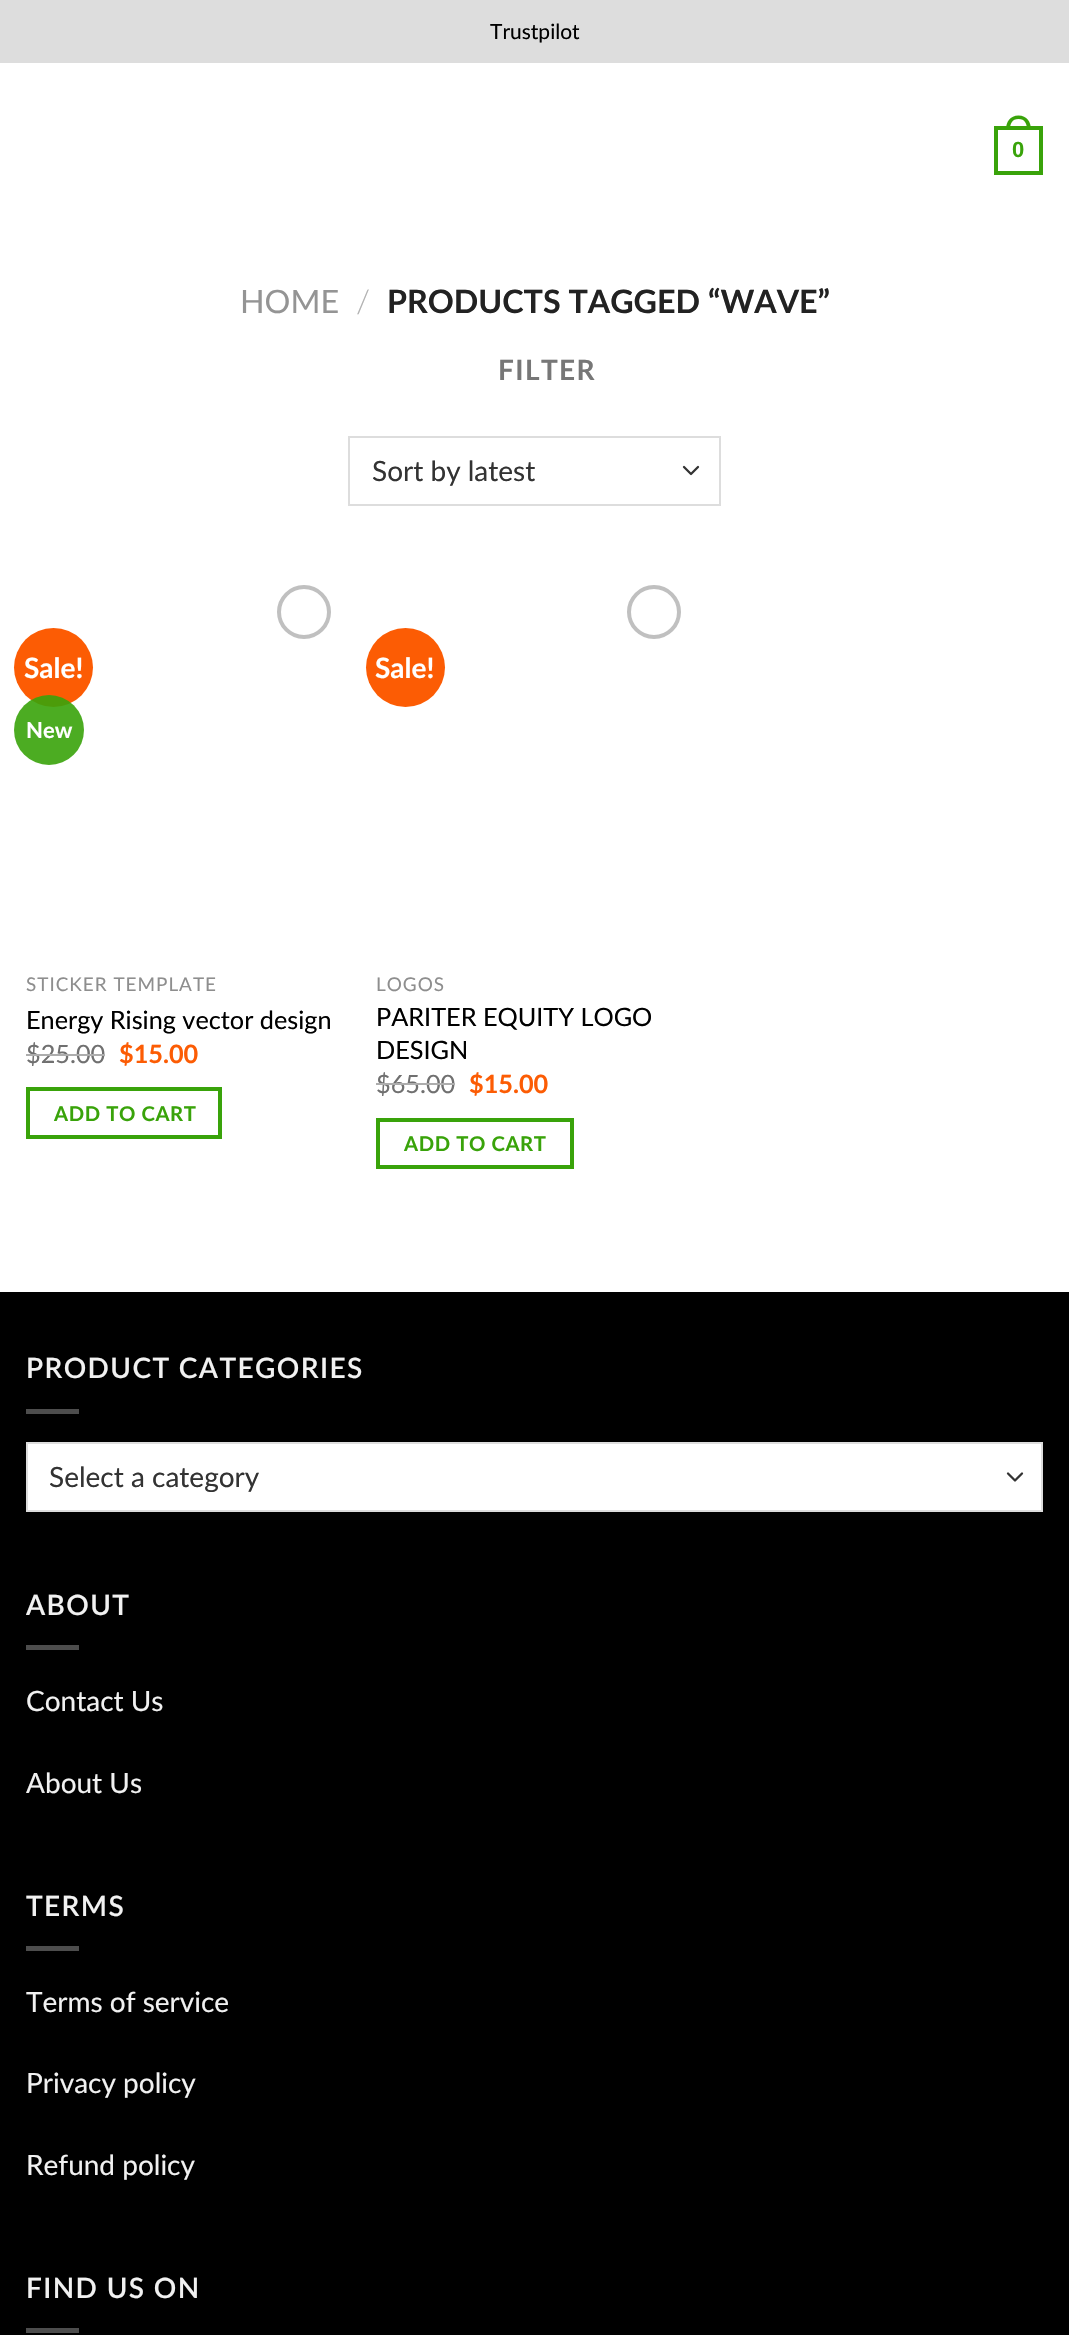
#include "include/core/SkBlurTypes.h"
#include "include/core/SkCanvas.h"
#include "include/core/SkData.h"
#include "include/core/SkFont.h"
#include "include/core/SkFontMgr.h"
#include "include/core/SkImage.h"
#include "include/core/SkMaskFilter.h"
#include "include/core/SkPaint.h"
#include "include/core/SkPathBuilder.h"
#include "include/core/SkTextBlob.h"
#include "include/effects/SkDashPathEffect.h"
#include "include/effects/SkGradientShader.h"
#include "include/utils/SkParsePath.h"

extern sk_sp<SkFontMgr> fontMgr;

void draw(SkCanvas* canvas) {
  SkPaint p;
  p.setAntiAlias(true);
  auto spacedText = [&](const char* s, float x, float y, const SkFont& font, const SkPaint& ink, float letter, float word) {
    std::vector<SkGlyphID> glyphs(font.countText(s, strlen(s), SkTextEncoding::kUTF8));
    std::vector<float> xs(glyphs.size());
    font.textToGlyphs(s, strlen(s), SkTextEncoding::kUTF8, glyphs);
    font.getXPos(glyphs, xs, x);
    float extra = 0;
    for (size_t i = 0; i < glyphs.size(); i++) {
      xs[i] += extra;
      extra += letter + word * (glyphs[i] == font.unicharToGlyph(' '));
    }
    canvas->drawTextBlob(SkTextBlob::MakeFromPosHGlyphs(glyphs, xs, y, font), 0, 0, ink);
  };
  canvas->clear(SK_ColorWHITE);
  p.setColor(SkColorSetRGB(221, 221, 221));
  canvas->drawRect(SkRect::MakeLTRB(0, 0, 1069, 63), p);
  p.setStyle(SkPaint::kStroke_Style);
  p.setStrokeWidth(4);
  p.setColor(SkColorSetRGB(57, 163, 10));
  canvas->drawRect(SkRect::MakeLTRB(996, 128, 1041, 173), p);
  p.setStyle(SkPaint::kFill_Style);
  canvas->drawPath(SkPathBuilder(SkPathFillType::kEvenOdd).moveTo(1018.5f, 115.5f).cubicTo(1027, 115.5f, 1031, 122, 1031, 129.5f).lineTo(1006, 129.5f).cubicTo(1006, 122, 1010, 115.5f, 1018.5f, 115.5f).close().moveTo(1018.5f, 119).cubicTo(1025, 119, 1027, 124, 1027, 129.5f).lineTo(1010, 129.5f).cubicTo(1010, 124, 1012, 119, 1018.5f, 119).close().detach(), p);
  p.setStyle(SkPaint::kStroke_Style);
  p.setStrokeWidth(2.3f);
  p.setStrokeCap(SkPaint::kRound_Cap);
  p.setStrokeJoin(SkPaint::kRound_Join);
  p.setColor(SkColorSetRGB(51, 51, 51));
  canvas->drawPath(SkPathBuilder().moveTo(684, 467).lineTo(691, 474).lineTo(698, 467).detach(), p);
  p.setStrokeWidth(2);
  p.setStrokeCap(SkPaint::kButt_Cap);
  p.setStrokeJoin(SkPaint::kMiter_Join);
  p.setColor(SkColorSetRGB(221, 221, 221));
  canvas->drawRect(SkRect::MakeLTRB(349, 437, 720, 505), p);
  p.setStyle(SkPaint::kFill_Style);
  p.setColor(SkColorSetRGB(252, 92, 4));
  canvas->drawCircle(53.5f, 667.5f, 39.5f, p);
  p.setColor(SkColorSetARGB(230, 57, 163, 10));
  canvas->drawCircle(49, 730, 35, p);
  p.setStyle(SkPaint::kStroke_Style);
  p.setStrokeWidth(4);
  p.setColor(SkColorSetRGB(192, 192, 192));
  canvas->drawCircle(304, 612, 25, p);
  p.setColor(SkColorSetRGB(57, 163, 10));
  canvas->drawRect(SkRect::MakeLTRB(28, 1089, 220, 1137), p);
  p.setStyle(SkPaint::kFill_Style);
  p.setColor(SkColorSetRGB(252, 92, 4));
  canvas->drawCircle(405.5f, 667.5f, 39.5f, p);
  p.setStyle(SkPaint::kStroke_Style);
  p.setColor(SkColorSetRGB(192, 192, 192));
  canvas->drawCircle(654, 612, 25, p);
  p.setColor(SkColorSetRGB(57, 163, 10));
  canvas->drawRect(SkRect::MakeLTRB(378, 1120, 572, 1167), p);
  p.setStyle(SkPaint::kFill_Style);
  p.setColor(SK_ColorBLACK);
  canvas->drawRect(SkRect::MakeLTRB(0, 1292, 1069, 2335), p);
  p.setColor(SkColorSetRGB(77, 77, 77));
  canvas->drawRect(SkRect::MakeLTRB(26, 1409, 79, 1414), p);
  p.setColor(SK_ColorWHITE);
  canvas->drawRect(SkRect::MakeLTRB(28, 1444, 1041, 1510), p);
  p.setStyle(SkPaint::kStroke_Style);
  p.setStrokeWidth(2.3f);
  p.setStrokeCap(SkPaint::kRound_Cap);
  p.setStrokeJoin(SkPaint::kRound_Join);
  p.setColor(SkColorSetRGB(51, 51, 51));
  canvas->drawPath(SkPathBuilder().moveTo(1008, 1473.5f).lineTo(1015, 1480.5f).lineTo(1022, 1473.5f).detach(), p);
  p.setStrokeWidth(2);
  p.setStrokeCap(SkPaint::kButt_Cap);
  p.setStrokeJoin(SkPaint::kMiter_Join);
  p.setColor(SkColorSetRGB(221, 221, 221));
  canvas->drawRect(SkRect::MakeLTRB(27, 1443, 1042, 1511), p);
  p.setStyle(SkPaint::kFill_Style);
  p.setColor(SkColorSetRGB(77, 77, 77));
  canvas->drawRect(SkRect::MakeLTRB(26, 1645, 79, 1650), p);
  canvas->drawRect(SkRect::MakeLTRB(26, 1946, 79, 1951), p);
  canvas->drawRect(SkRect::MakeLTRB(26, 2328, 79, 2333), p);
  SkFont font1(fontMgr->matchFamilyStyle("Lato", SkFontStyle::Normal()), 21);
  font1.setSubpixel(true);
  p.setColor(SK_ColorBLACK);
  canvas->drawString("Trustpilot", 490, 39, font1, p);
  SkFont font2(fontMgr->matchFamilyStyle("Liberation Sans", SkFontStyle::Bold()), 22);
  font2.setSubpixel(true);
  p.setColor(SkColorSetRGB(57, 163, 10));
  canvas->drawString("0", 1012, 157, font2, p);
  SkFont font3(fontMgr->matchFamilyStyle("Lato", SkFontStyle::Normal()), 32.25f);
  font3.setSubpixel(true);
  p.setColor(SkColorSetRGB(148, 148, 148));
  canvas->drawString("HOME", 240, 313, font3, p);
  SkFont font4(fontMgr->matchFamilyStyle("Lato", SkFontStyle(300, SkFontStyle::kNormal_Width, SkFontStyle::kUpright_Slant)), 32.25f);
  font4.setSubpixel(true);
  p.setColor(SkColorSetRGB(178, 178, 178));
  canvas->drawString("/", 356, 313, font4, p);
  SkFont font5(fontMgr->matchFamilyStyle("Lato", SkFontStyle::Bold()), 32.25f);
  font5.setSubpixel(true);
  p.setColor(SkColorSetRGB(34, 34, 34));
  canvas->drawString("PRODUCTS TAGGED “WAVE”", 387, 313, font5, p);
  SkFont font6(fontMgr->matchFamilyStyle("Lato", SkFontStyle::Bold()), 28);
  font6.setSubpixel(true);
  p.setColor(SkColorSetRGB(119, 119, 119));
  spacedText("FILTER", 498, 380, font6, p, 1.4f, 0);
  SkFont font7(fontMgr->matchFamilyStyle("Lato", SkFontStyle::Normal()), 28);
  font7.setSubpixel(true);
  p.setColor(SkColorSetRGB(51, 51, 51));
  canvas->drawString("Sort by latest", 372, 481, font7, p);
  p.setColor(SK_ColorWHITE);
  canvas->drawString("Sale!", 24, 678, font6, p);
  SkFont font8(fontMgr->matchFamilyStyle("Lato", SkFontStyle::Bold()), 22);
  font8.setSubpixel(true);
  canvas->drawString("New", 26, 738, font8, p);
  SkFont font9(fontMgr->matchFamilyStyle("Lato", SkFontStyle::Normal()), 18.9f);
  font9.setSubpixel(true);
  p.setColor(SkColorSetRGB(142, 142, 142));
  spacedText("STICKER TEMPLATE", 26, 991, font9, p, 1, 0);
  SkFont font10(fontMgr->matchFamilyStyle("Lato", SkFontStyle::Normal()), 25.25f);
  font10.setSubpixel(true);
  p.setColor(SK_ColorBLACK);
  canvas->drawString("Energy Rising vector design", 26, 1029, font10, p);
  p.setColor(SkColorSetRGB(112, 112, 112));
  canvas->drawString("$25.00", 26, 1063, font10, p);
  p.setColor(SkColorSetRGB(173, 173, 173));
  canvas->drawRect(SkRect::MakeLTRB(26, 1054, 105, 1056), p);
  SkFont font11(fontMgr->matchFamilyStyle("Lato", SkFontStyle::Bold()), 25.25f);
  font11.setSubpixel(true);
  p.setColor(SkColorSetRGB(252, 92, 4));
  canvas->drawString("$15.00", 119, 1063, font11, p);
  SkFont font12(fontMgr->matchFamilyStyle("Lato", SkFontStyle::Bold()), 20.25f);
  font12.setSubpixel(true);
  p.setColor(SkColorSetRGB(57, 163, 10));
  spacedText("ADD TO CART", 54, 1121, font12, p, 0.6f, 0);
  p.setColor(SK_ColorWHITE);
  canvas->drawString("Sale!", 375, 678, font6, p);
  p.setColor(SkColorSetRGB(142, 142, 142));
  spacedText("LOGOS", 376, 991, font9, p, 1, 0);
  p.setColor(SK_ColorBLACK);
  canvas->drawString("PARITER EQUITY LOGO", 376, 1026, font10, p);
  canvas->drawString("DESIGN", 376, 1059, font10, p);
  p.setColor(SkColorSetRGB(112, 112, 112));
  canvas->drawString("$65.00", 376, 1093, font10, p);
  p.setColor(SkColorSetRGB(173, 173, 173));
  canvas->drawRect(SkRect::MakeLTRB(376, 1083, 455, 1085), p);
  p.setColor(SkColorSetRGB(252, 92, 4));
  canvas->drawString("$15.00", 469, 1093, font11, p);
  p.setColor(SkColorSetRGB(57, 163, 10));
  spacedText("ADD TO CART", 404, 1151, font12, p, 0.6f, 0);
  SkFont font13(fontMgr->matchFamilyStyle("Lato", SkFontStyle(600, SkFontStyle::kNormal_Width, SkFontStyle::kUpright_Slant)), 28);
  font13.setSubpixel(true);
  p.setColor(SkColorSetRGB(241, 241, 241));
  spacedText("PRODUCT CATEGORIES", 26, 1378, font13, p, 1.4f, 0);
  p.setColor(SkColorSetRGB(51, 51, 51));
  canvas->drawString("Select a category", 49, 1487, font7, p);
  p.setColor(SkColorSetRGB(241, 241, 241));
  spacedText("ABOUT", 26, 1615, font13, p, 1.4f, 0);
  canvas->drawString("Contact Us", 26, 1711, font7, p);
  canvas->drawString("About Us", 26, 1793, font7, p);
  spacedText("TERMS", 26, 1916, font13, p, 1.4f, 0);
  canvas->drawString("Terms of service", 26, 2012, font7, p);
  canvas->drawString("Privacy policy", 26, 2093, font7, p);
  canvas->drawString("Refund policy", 26, 2175, font7, p);
  spacedText("FIND US ON", 26, 2298, font13, p, 1.4f, 0);
}
